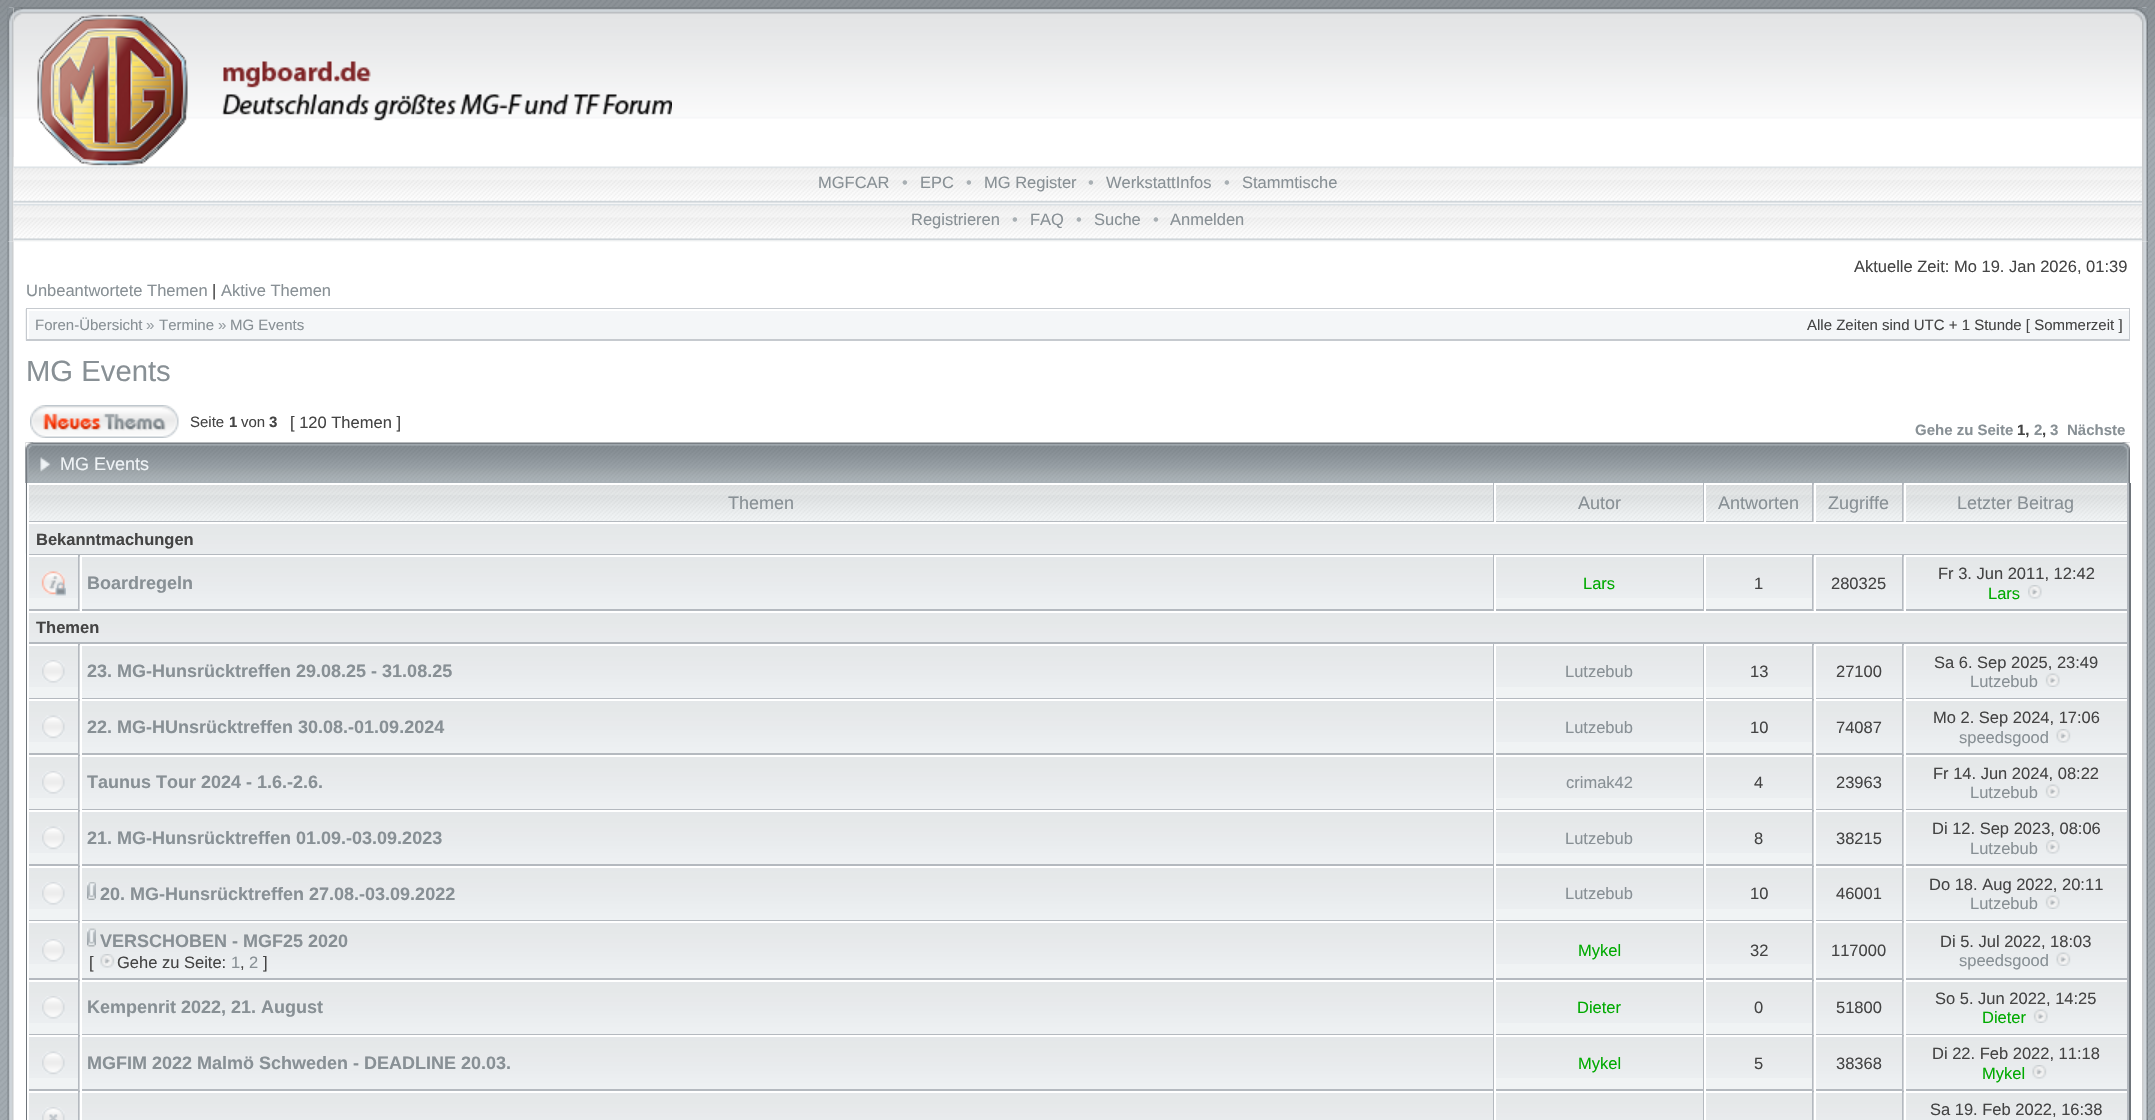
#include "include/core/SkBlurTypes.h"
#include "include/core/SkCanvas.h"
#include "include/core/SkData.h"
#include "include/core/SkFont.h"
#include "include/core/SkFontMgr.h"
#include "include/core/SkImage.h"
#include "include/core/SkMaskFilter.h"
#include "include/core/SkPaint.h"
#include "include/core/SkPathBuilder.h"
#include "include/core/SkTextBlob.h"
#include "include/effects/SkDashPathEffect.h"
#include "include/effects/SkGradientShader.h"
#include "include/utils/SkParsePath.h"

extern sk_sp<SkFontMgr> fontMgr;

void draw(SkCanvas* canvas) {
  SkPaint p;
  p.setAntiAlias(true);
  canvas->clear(SK_ColorWHITE);
  canvas->drawImageRect(SkImages::DeferredFromEncodedData(SkData::MakeFromFileName("images/1.png")), SkRect::MakeLTRB(0, 117, 2155, 1120), SkSamplingOptions());
  canvas->drawImageRect(SkImages::DeferredFromEncodedData(SkData::MakeFromFileName("images/2.png")), SkRect::MakeLTRB(0, 0, 2155, 117), SkSamplingOptions());
  p.setColor(SK_ColorWHITE);
  canvas->drawRect(SkRect::MakeLTRB(8, 8, 2148, 1120), p);
  canvas->drawImageRect(SkImages::DeferredFromEncodedData(SkData::MakeFromFileName("images/5.png")), SkRect::MakeLTRB(13, 7, 2142, 119), SkSamplingOptions());
  canvas->drawImageRect(SkImages::DeferredFromEncodedData(SkData::MakeFromFileName("images/6.png")), SkRect::MakeLTRB(13, 7, 23, 22), SkSamplingOptions());
  canvas->drawImageRect(SkImages::DeferredFromEncodedData(SkData::MakeFromFileName("images/3.png")), SkRect::MakeLTRB(7, 7, 14, 242), SkSamplingOptions());
  canvas->drawImageRect(SkImages::DeferredFromEncodedData(SkData::MakeFromFileName("images/4.png")), SkRect::MakeLTRB(7, 7, 14, 157), SkSamplingOptions());
  canvas->drawImageRect(SkImages::DeferredFromEncodedData(SkData::MakeFromFileName("images/7.png")), SkRect::MakeLTRB(2133, 7, 2142, 22), SkSamplingOptions());
  canvas->drawImageRect(SkImages::DeferredFromEncodedData(SkData::MakeFromFileName("images/8.png")), SkRect::MakeLTRB(37, 14, 672, 166), SkSamplingOptions());
  canvas->drawImageRect(SkImages::DeferredFromEncodedData(SkData::MakeFromFileName("images/9.png")), SkRect::MakeLTRB(13, 166, 2142, 204), SkSamplingOptions());
  canvas->drawImageRect(SkImages::DeferredFromEncodedData(SkData::MakeFromFileName("images/10.png")), SkRect::MakeLTRB(13, 204, 2142, 242), SkSamplingOptions());
  canvas->drawImageRect(SkImages::DeferredFromEncodedData(SkData::MakeFromFileName("images/11.png")), SkRect::MakeLTRB(2142, 7, 2148, 242), SkSamplingOptions());
  canvas->drawImageRect(SkImages::DeferredFromEncodedData(SkData::MakeFromFileName("images/12.png")), SkRect::MakeLTRB(2142, 7, 2148, 110), SkSamplingOptions());
  canvas->drawImageRect(SkImages::DeferredFromEncodedData(SkData::MakeFromFileName("images/13.png")), SkRect::MakeLTRB(7, 241, 14, 1120), SkSamplingOptions());
  canvas->drawImageRect(SkImages::DeferredFromEncodedData(SkData::MakeFromFileName("images/14.png")), SkRect::MakeLTRB(25, 309, 26, 341), SkSamplingOptions());
  p.setStyle(SkPaint::kStroke_Style);
  p.setStrokeWidth(2);
  p.setColor(SkColorSetRGB(198, 202, 207));
  canvas->drawRect(SkRect::MakeLTRB(27, 309, 2129, 340), p);
  p.setStyle(SkPaint::kFill_Style);
  p.setColor(SkColorSetRGB(244, 246, 248));
  canvas->drawRect(SkRect::MakeLTRB(29, 311, 2129, 339), p);
  p.setColor(SK_ColorWHITE);
  canvas->drawRect(SkRect::MakeLTRB(27, 309, 2129, 311), p);
  canvas->drawRect(SkRect::MakeLTRB(27, 309, 28, 339), p);
  canvas->drawImageRect(SkImages::DeferredFromEncodedData(SkData::MakeFromFileName("images/15.png")), SkRect::MakeLTRB(30, 405, 179, 438), SkSamplingOptions());
  canvas->drawImageRect(SkImages::DeferredFromEncodedData(SkData::MakeFromFileName("images/16.png")), SkRect::MakeLTRB(25, 442, 2130, 483), SkSamplingOptions());
  canvas->drawImageRect(SkImages::DeferredFromEncodedData(SkData::MakeFromFileName("images/17.png")), SkRect::MakeLTRB(25, 442, 51, 483), SkSamplingOptions());
  canvas->drawImageRect(SkImages::DeferredFromEncodedData(SkData::MakeFromFileName("images/18.png")), SkRect::MakeLTRB(2122, 442, 2130, 483), SkSamplingOptions());
  canvas->drawImageRect(SkImages::DeferredFromEncodedData(SkData::MakeFromFileName("images/19.png")), SkRect::MakeLTRB(25, 483, 26, 554), SkSamplingOptions());
  p.setColor(SkColorSetRGB(110, 116, 122));
  canvas->drawRect(SkRect::MakeLTRB(2129, 483, 2131, 1120), p);
  canvas->drawRect(SkRect::MakeLTRB(26, 483, 27, 1120), p);
  canvas->drawImageRect(SkImages::DeferredFromEncodedData(SkData::MakeFromFileName("images/20.png")), SkRect::MakeLTRB(29, 485, 1493, 521), SkSamplingOptions());
  p.setColor(SkColorSetRGB(180, 185, 191));
  canvas->drawRect(SkRect::MakeLTRB(1493, 483, 1494, 522), p);
  canvas->drawRect(SkRect::MakeLTRB(27, 521, 1494, 522), p);
  p.setColor(SK_ColorWHITE);
  canvas->drawRect(SkRect::MakeLTRB(27, 521, 29, 522), p);
  canvas->drawImageRect(SkImages::DeferredFromEncodedData(SkData::MakeFromFileName("images/21.png")), SkRect::MakeLTRB(1496, 485, 1703, 521), SkSamplingOptions());
  p.setColor(SkColorSetRGB(180, 185, 191));
  canvas->drawRect(SkRect::MakeLTRB(1703, 483, 1704, 522), p);
  canvas->drawRect(SkRect::MakeLTRB(1494, 521, 1704, 522), p);
  p.setColor(SK_ColorWHITE);
  canvas->drawRect(SkRect::MakeLTRB(1494, 521, 1496, 522), p);
  canvas->drawImageRect(SkImages::DeferredFromEncodedData(SkData::MakeFromFileName("images/22.png")), SkRect::MakeLTRB(1706, 485, 1812, 521), SkSamplingOptions());
  p.setColor(SkColorSetRGB(180, 185, 191));
  canvas->drawRect(SkRect::MakeLTRB(1812, 483, 1814, 522), p);
  canvas->drawRect(SkRect::MakeLTRB(1704, 521, 1814, 522), p);
  p.setColor(SK_ColorWHITE);
  canvas->drawRect(SkRect::MakeLTRB(1704, 521, 1706, 522), p);
  canvas->drawImageRect(SkImages::DeferredFromEncodedData(SkData::MakeFromFileName("images/23.png")), SkRect::MakeLTRB(1813, 484, 1902, 522), SkSamplingOptions());
  canvas->drawRect(SkRect::MakeLTRB(1814, 484, 1904, 485), p);
  p.setColor(SkColorSetRGB(180, 185, 191));
  canvas->drawRect(SkRect::MakeLTRB(1902, 483, 1904, 522), p);
  canvas->drawRect(SkRect::MakeLTRB(1814, 521, 1904, 522), p);
  p.setColor(SK_ColorWHITE);
  canvas->drawRect(SkRect::MakeLTRB(1814, 483, 1816, 522), p);
  canvas->drawImageRect(SkImages::DeferredFromEncodedData(SkData::MakeFromFileName("images/24.png")), SkRect::MakeLTRB(1903, 484, 2127, 522), SkSamplingOptions());
  canvas->drawRect(SkRect::MakeLTRB(1904, 484, 2129, 485), p);
  p.setColor(SkColorSetRGB(180, 185, 191));
  canvas->drawRect(SkRect::MakeLTRB(2127, 483, 2129, 555), p);
  canvas->drawRect(SkRect::MakeLTRB(1904, 521, 2129, 522), p);
  p.setColor(SK_ColorWHITE);
  canvas->drawRect(SkRect::MakeLTRB(1904, 483, 1906, 522), p);
  canvas->drawImageRect(SkImages::DeferredFromEncodedData(SkData::MakeFromFileName("images/25.png")), SkRect::MakeLTRB(29, 524, 2127, 554), SkSamplingOptions());
  p.setColor(SkColorSetRGB(180, 185, 191));
  canvas->drawRect(SkRect::MakeLTRB(27, 554, 2129, 555), p);
  p.setColor(SK_ColorWHITE);
  canvas->drawRect(SkRect::MakeLTRB(27, 554, 29, 555), p);
  p.setColor(SkColorSetRGB(240, 243, 244));
  canvas->drawRect(SkRect::MakeLTRB(29, 598, 78, 609), p);
  canvas->drawImageRect(SkImages::DeferredFromEncodedData(SkData::MakeFromFileName("images/26.png")), SkRect::MakeLTRB(29, 557, 78, 598), SkSamplingOptions());
  p.setColor(SkColorSetRGB(180, 185, 191));
  canvas->drawRect(SkRect::MakeLTRB(78, 555, 80, 611), p);
  canvas->drawRect(SkRect::MakeLTRB(27, 609, 80, 611), p);
  p.setColor(SK_ColorWHITE);
  canvas->drawRect(SkRect::MakeLTRB(27, 609, 29, 611), p);
  canvas->drawImageRect(SkImages::DeferredFromEncodedData(SkData::MakeFromFileName("images/27.png")), SkRect::MakeLTRB(41, 571, 66, 596), SkSamplingOptions());
  canvas->drawImageRect(SkImages::DeferredFromEncodedData(SkData::MakeFromFileName("images/28.png")), SkRect::MakeLTRB(79, 556, 1493, 611), SkSamplingOptions());
  canvas->drawRect(SkRect::MakeLTRB(80, 556, 1494, 557), p);
  p.setColor(SkColorSetRGB(180, 185, 191));
  canvas->drawRect(SkRect::MakeLTRB(1493, 555, 1494, 611), p);
  canvas->drawRect(SkRect::MakeLTRB(80, 609, 1494, 611), p);
  p.setColor(SK_ColorWHITE);
  canvas->drawRect(SkRect::MakeLTRB(80, 555, 82, 611), p);
  p.setColor(SkColorSetRGB(240, 243, 244));
  canvas->drawRect(SkRect::MakeLTRB(1496, 598, 1703, 609), p);
  canvas->drawImageRect(SkImages::DeferredFromEncodedData(SkData::MakeFromFileName("images/29.png")), SkRect::MakeLTRB(1496, 557, 1703, 598), SkSamplingOptions());
  p.setColor(SkColorSetRGB(180, 185, 191));
  canvas->drawRect(SkRect::MakeLTRB(1703, 555, 1704, 611), p);
  canvas->drawRect(SkRect::MakeLTRB(1494, 609, 1704, 611), p);
  p.setColor(SK_ColorWHITE);
  canvas->drawRect(SkRect::MakeLTRB(1494, 609, 1496, 611), p);
  p.setColor(SkColorSetRGB(240, 243, 244));
  canvas->drawRect(SkRect::MakeLTRB(1706, 598, 1812, 609), p);
  canvas->drawImageRect(SkImages::DeferredFromEncodedData(SkData::MakeFromFileName("images/30.png")), SkRect::MakeLTRB(1706, 557, 1812, 598), SkSamplingOptions());
  p.setColor(SkColorSetRGB(180, 185, 191));
  canvas->drawRect(SkRect::MakeLTRB(1812, 555, 1814, 611), p);
  canvas->drawRect(SkRect::MakeLTRB(1704, 609, 1814, 611), p);
  p.setColor(SK_ColorWHITE);
  canvas->drawRect(SkRect::MakeLTRB(1704, 609, 1706, 611), p);
  canvas->drawImageRect(SkImages::DeferredFromEncodedData(SkData::MakeFromFileName("images/31.png")), SkRect::MakeLTRB(1813, 556, 1902, 611), SkSamplingOptions());
  canvas->drawRect(SkRect::MakeLTRB(1814, 556, 1904, 557), p);
  p.setColor(SkColorSetRGB(180, 185, 191));
  canvas->drawRect(SkRect::MakeLTRB(1902, 555, 1904, 611), p);
  canvas->drawRect(SkRect::MakeLTRB(1814, 609, 1904, 611), p);
  p.setColor(SK_ColorWHITE);
  canvas->drawRect(SkRect::MakeLTRB(1814, 555, 1816, 611), p);
  canvas->drawImageRect(SkImages::DeferredFromEncodedData(SkData::MakeFromFileName("images/32.png")), SkRect::MakeLTRB(1903, 556, 2127, 611), SkSamplingOptions());
  canvas->drawRect(SkRect::MakeLTRB(1904, 556, 2129, 557), p);
  p.setColor(SkColorSetRGB(180, 185, 191));
  canvas->drawRect(SkRect::MakeLTRB(2127, 555, 2129, 644), p);
  canvas->drawRect(SkRect::MakeLTRB(1904, 609, 2129, 611), p);
  p.setColor(SK_ColorWHITE);
  canvas->drawRect(SkRect::MakeLTRB(1904, 555, 1906, 611), p);
  canvas->drawImageRect(SkImages::DeferredFromEncodedData(SkData::MakeFromFileName("images/33.png")), SkRect::MakeLTRB(2028, 585, 2042, 599), SkSamplingOptions());
  canvas->drawImageRect(SkImages::DeferredFromEncodedData(SkData::MakeFromFileName("images/34.png")), SkRect::MakeLTRB(29, 613, 2127, 642), SkSamplingOptions());
  p.setColor(SkColorSetRGB(180, 185, 191));
  canvas->drawRect(SkRect::MakeLTRB(27, 642, 2129, 644), p);
  p.setColor(SK_ColorWHITE);
  canvas->drawRect(SkRect::MakeLTRB(27, 642, 29, 644), p);
  p.setColor(SkColorSetRGB(240, 243, 244));
  canvas->drawRect(SkRect::MakeLTRB(29, 687, 78, 698), p);
  canvas->drawImageRect(SkImages::DeferredFromEncodedData(SkData::MakeFromFileName("images/35.png")), SkRect::MakeLTRB(29, 646, 78, 687), SkSamplingOptions());
  p.setColor(SkColorSetRGB(180, 185, 191));
  canvas->drawRect(SkRect::MakeLTRB(78, 644, 80, 1091), p);
  canvas->drawRect(SkRect::MakeLTRB(27, 698, 80, 699), p);
  p.setColor(SK_ColorWHITE);
  canvas->drawRect(SkRect::MakeLTRB(27, 698, 29, 699), p);
  canvas->drawImageRect(SkImages::DeferredFromEncodedData(SkData::MakeFromFileName("images/36.png")), SkRect::MakeLTRB(42, 660, 65, 683), SkSamplingOptions());
  canvas->drawImageRect(SkImages::DeferredFromEncodedData(SkData::MakeFromFileName("images/37.png")), SkRect::MakeLTRB(79, 645, 1493, 699), SkSamplingOptions());
  canvas->drawRect(SkRect::MakeLTRB(80, 645, 1494, 646), p);
  p.setColor(SkColorSetRGB(180, 185, 191));
  canvas->drawRect(SkRect::MakeLTRB(1493, 644, 1494, 699), p);
  canvas->drawRect(SkRect::MakeLTRB(80, 698, 1494, 699), p);
  p.setColor(SK_ColorWHITE);
  canvas->drawRect(SkRect::MakeLTRB(80, 644, 82, 699), p);
  p.setColor(SkColorSetRGB(240, 243, 244));
  canvas->drawRect(SkRect::MakeLTRB(1496, 687, 1703, 698), p);
  canvas->drawImageRect(SkImages::DeferredFromEncodedData(SkData::MakeFromFileName("images/38.png")), SkRect::MakeLTRB(1496, 646, 1703, 687), SkSamplingOptions());
  p.setColor(SkColorSetRGB(180, 185, 191));
  canvas->drawRect(SkRect::MakeLTRB(1703, 644, 1704, 1091), p);
  canvas->drawRect(SkRect::MakeLTRB(1494, 698, 1704, 699), p);
  p.setColor(SK_ColorWHITE);
  canvas->drawRect(SkRect::MakeLTRB(1494, 698, 1496, 699), p);
  p.setColor(SkColorSetRGB(240, 243, 244));
  canvas->drawRect(SkRect::MakeLTRB(1706, 687, 1812, 698), p);
  canvas->drawImageRect(SkImages::DeferredFromEncodedData(SkData::MakeFromFileName("images/39.png")), SkRect::MakeLTRB(1706, 646, 1812, 687), SkSamplingOptions());
  p.setColor(SkColorSetRGB(180, 185, 191));
  canvas->drawRect(SkRect::MakeLTRB(1812, 644, 1814, 1120), p);
  canvas->drawRect(SkRect::MakeLTRB(1704, 698, 1814, 699), p);
  p.setColor(SK_ColorWHITE);
  canvas->drawRect(SkRect::MakeLTRB(1704, 698, 1706, 699), p);
  canvas->drawImageRect(SkImages::DeferredFromEncodedData(SkData::MakeFromFileName("images/40.png")), SkRect::MakeLTRB(1813, 645, 1902, 699), SkSamplingOptions());
  canvas->drawRect(SkRect::MakeLTRB(1814, 645, 1904, 646), p);
  p.setColor(SkColorSetRGB(180, 185, 191));
  canvas->drawRect(SkRect::MakeLTRB(1902, 644, 1904, 699), p);
  canvas->drawRect(SkRect::MakeLTRB(1814, 698, 1904, 699), p);
  p.setColor(SK_ColorWHITE);
  canvas->drawRect(SkRect::MakeLTRB(1814, 644, 1816, 699), p);
  canvas->drawImageRect(SkImages::DeferredFromEncodedData(SkData::MakeFromFileName("images/41.png")), SkRect::MakeLTRB(1903, 645, 2127, 699), SkSamplingOptions());
  canvas->drawRect(SkRect::MakeLTRB(1904, 645, 2129, 646), p);
  p.setColor(SkColorSetRGB(180, 185, 191));
  canvas->drawRect(SkRect::MakeLTRB(2127, 644, 2129, 699), p);
  canvas->drawRect(SkRect::MakeLTRB(1904, 698, 2129, 699), p);
  p.setColor(SK_ColorWHITE);
  canvas->drawRect(SkRect::MakeLTRB(1904, 644, 1906, 699), p);
  canvas->drawImageRect(SkImages::DeferredFromEncodedData(SkData::MakeFromFileName("images/42.png")), SkRect::MakeLTRB(2045, 673, 2060, 687), SkSamplingOptions());
  p.setColor(SkColorSetRGB(240, 243, 244));
  canvas->drawRect(SkRect::MakeLTRB(29, 742, 78, 753), p);
  canvas->drawImageRect(SkImages::DeferredFromEncodedData(SkData::MakeFromFileName("images/26.png")), SkRect::MakeLTRB(29, 701, 78, 742), SkSamplingOptions());
  p.setColor(SkColorSetRGB(180, 185, 191));
  canvas->drawRect(SkRect::MakeLTRB(27, 753, 80, 755), p);
  p.setColor(SK_ColorWHITE);
  canvas->drawRect(SkRect::MakeLTRB(27, 753, 29, 755), p);
  canvas->drawImageRect(SkImages::DeferredFromEncodedData(SkData::MakeFromFileName("images/43.png")), SkRect::MakeLTRB(42, 715, 65, 739), SkSamplingOptions());
  canvas->drawImageRect(SkImages::DeferredFromEncodedData(SkData::MakeFromFileName("images/44.png")), SkRect::MakeLTRB(79, 700, 1493, 755), SkSamplingOptions());
  canvas->drawRect(SkRect::MakeLTRB(80, 700, 1494, 701), p);
  p.setColor(SkColorSetRGB(180, 185, 191));
  canvas->drawRect(SkRect::MakeLTRB(1493, 699, 1494, 755), p);
  canvas->drawRect(SkRect::MakeLTRB(80, 753, 1814, 755), p);
  p.setColor(SK_ColorWHITE);
  canvas->drawRect(SkRect::MakeLTRB(80, 699, 82, 755), p);
  p.setColor(SkColorSetRGB(240, 243, 244));
  canvas->drawRect(SkRect::MakeLTRB(1496, 742, 1703, 753), p);
  canvas->drawImageRect(SkImages::DeferredFromEncodedData(SkData::MakeFromFileName("images/29.png")), SkRect::MakeLTRB(1496, 701, 1703, 742), SkSamplingOptions());
  p.setColor(SK_ColorWHITE);
  canvas->drawRect(SkRect::MakeLTRB(1494, 753, 1496, 755), p);
  p.setColor(SkColorSetRGB(240, 243, 244));
  canvas->drawRect(SkRect::MakeLTRB(1706, 742, 1812, 753), p);
  canvas->drawImageRect(SkImages::DeferredFromEncodedData(SkData::MakeFromFileName("images/30.png")), SkRect::MakeLTRB(1706, 701, 1812, 742), SkSamplingOptions());
  p.setColor(SK_ColorWHITE);
  canvas->drawRect(SkRect::MakeLTRB(1704, 753, 1706, 755), p);
  canvas->drawImageRect(SkImages::DeferredFromEncodedData(SkData::MakeFromFileName("images/31.png")), SkRect::MakeLTRB(1813, 700, 1902, 755), SkSamplingOptions());
  canvas->drawRect(SkRect::MakeLTRB(1814, 700, 1904, 701), p);
  p.setColor(SkColorSetRGB(180, 185, 191));
  canvas->drawRect(SkRect::MakeLTRB(1902, 699, 1904, 755), p);
  canvas->drawRect(SkRect::MakeLTRB(1814, 753, 1904, 755), p);
  p.setColor(SK_ColorWHITE);
  canvas->drawRect(SkRect::MakeLTRB(1814, 699, 1816, 755), p);
  canvas->drawImageRect(SkImages::DeferredFromEncodedData(SkData::MakeFromFileName("images/32.png")), SkRect::MakeLTRB(1903, 700, 2127, 755), SkSamplingOptions());
  canvas->drawRect(SkRect::MakeLTRB(1904, 700, 2129, 701), p);
  p.setColor(SkColorSetRGB(180, 185, 191));
  canvas->drawRect(SkRect::MakeLTRB(2127, 699, 2129, 755), p);
  canvas->drawRect(SkRect::MakeLTRB(1904, 753, 2129, 755), p);
  p.setColor(SK_ColorWHITE);
  canvas->drawRect(SkRect::MakeLTRB(1904, 699, 1906, 755), p);
  canvas->drawImageRect(SkImages::DeferredFromEncodedData(SkData::MakeFromFileName("images/45.png")), SkRect::MakeLTRB(2056, 729, 2071, 743), SkSamplingOptions());
  p.setColor(SkColorSetRGB(240, 243, 244));
  canvas->drawRect(SkRect::MakeLTRB(29, 798, 78, 809), p);
  canvas->drawImageRect(SkImages::DeferredFromEncodedData(SkData::MakeFromFileName("images/35.png")), SkRect::MakeLTRB(29, 757, 78, 798), SkSamplingOptions());
  p.setColor(SkColorSetRGB(180, 185, 191));
  canvas->drawRect(SkRect::MakeLTRB(27, 809, 80, 810), p);
  p.setColor(SK_ColorWHITE);
  canvas->drawRect(SkRect::MakeLTRB(27, 809, 29, 810), p);
  canvas->drawImageRect(SkImages::DeferredFromEncodedData(SkData::MakeFromFileName("images/36.png")), SkRect::MakeLTRB(42, 771, 65, 794), SkSamplingOptions());
  canvas->drawImageRect(SkImages::DeferredFromEncodedData(SkData::MakeFromFileName("images/37.png")), SkRect::MakeLTRB(79, 756, 1493, 810), SkSamplingOptions());
  canvas->drawRect(SkRect::MakeLTRB(80, 756, 1494, 757), p);
  p.setColor(SkColorSetRGB(180, 185, 191));
  canvas->drawRect(SkRect::MakeLTRB(1493, 755, 1494, 810), p);
  canvas->drawRect(SkRect::MakeLTRB(80, 809, 1814, 810), p);
  p.setColor(SK_ColorWHITE);
  canvas->drawRect(SkRect::MakeLTRB(80, 755, 82, 810), p);
  p.setColor(SkColorSetRGB(240, 243, 244));
  canvas->drawRect(SkRect::MakeLTRB(1496, 798, 1703, 809), p);
  canvas->drawImageRect(SkImages::DeferredFromEncodedData(SkData::MakeFromFileName("images/46.png")), SkRect::MakeLTRB(1496, 757, 1703, 798), SkSamplingOptions());
  p.setColor(SK_ColorWHITE);
  canvas->drawRect(SkRect::MakeLTRB(1494, 809, 1496, 810), p);
  p.setColor(SkColorSetRGB(240, 243, 244));
  canvas->drawRect(SkRect::MakeLTRB(1706, 798, 1812, 809), p);
  canvas->drawImageRect(SkImages::DeferredFromEncodedData(SkData::MakeFromFileName("images/47.png")), SkRect::MakeLTRB(1706, 757, 1812, 798), SkSamplingOptions());
  p.setColor(SK_ColorWHITE);
  canvas->drawRect(SkRect::MakeLTRB(1704, 809, 1706, 810), p);
  canvas->drawImageRect(SkImages::DeferredFromEncodedData(SkData::MakeFromFileName("images/40.png")), SkRect::MakeLTRB(1813, 756, 1902, 810), SkSamplingOptions());
  canvas->drawRect(SkRect::MakeLTRB(1814, 756, 1904, 757), p);
  p.setColor(SkColorSetRGB(180, 185, 191));
  canvas->drawRect(SkRect::MakeLTRB(1902, 755, 1904, 810), p);
  canvas->drawRect(SkRect::MakeLTRB(1814, 809, 1904, 810), p);
  p.setColor(SK_ColorWHITE);
  canvas->drawRect(SkRect::MakeLTRB(1814, 755, 1816, 810), p);
  canvas->drawImageRect(SkImages::DeferredFromEncodedData(SkData::MakeFromFileName("images/48.png")), SkRect::MakeLTRB(1903, 756, 2127, 810), SkSamplingOptions());
  canvas->drawRect(SkRect::MakeLTRB(1904, 756, 2129, 757), p);
  p.setColor(SkColorSetRGB(180, 185, 191));
  canvas->drawRect(SkRect::MakeLTRB(2127, 755, 2129, 810), p);
  canvas->drawRect(SkRect::MakeLTRB(1904, 809, 2129, 810), p);
  p.setColor(SK_ColorWHITE);
  canvas->drawRect(SkRect::MakeLTRB(1904, 755, 1906, 810), p);
  canvas->drawImageRect(SkImages::DeferredFromEncodedData(SkData::MakeFromFileName("images/42.png")), SkRect::MakeLTRB(2045, 784, 2060, 798), SkSamplingOptions());
  p.setColor(SkColorSetRGB(240, 243, 244));
  canvas->drawRect(SkRect::MakeLTRB(29, 853, 78, 864), p);
  canvas->drawImageRect(SkImages::DeferredFromEncodedData(SkData::MakeFromFileName("images/26.png")), SkRect::MakeLTRB(29, 812, 78, 853), SkSamplingOptions());
  p.setColor(SkColorSetRGB(180, 185, 191));
  canvas->drawRect(SkRect::MakeLTRB(27, 864, 80, 866), p);
  p.setColor(SK_ColorWHITE);
  canvas->drawRect(SkRect::MakeLTRB(27, 864, 29, 866), p);
  canvas->drawImageRect(SkImages::DeferredFromEncodedData(SkData::MakeFromFileName("images/43.png")), SkRect::MakeLTRB(42, 826, 65, 850), SkSamplingOptions());
  canvas->drawImageRect(SkImages::DeferredFromEncodedData(SkData::MakeFromFileName("images/28.png")), SkRect::MakeLTRB(79, 811, 1493, 866), SkSamplingOptions());
  canvas->drawRect(SkRect::MakeLTRB(80, 811, 1494, 812), p);
  p.setColor(SkColorSetRGB(180, 185, 191));
  canvas->drawRect(SkRect::MakeLTRB(1493, 810, 1494, 866), p);
  canvas->drawRect(SkRect::MakeLTRB(80, 864, 1814, 866), p);
  p.setColor(SK_ColorWHITE);
  canvas->drawRect(SkRect::MakeLTRB(80, 810, 82, 866), p);
  p.setColor(SkColorSetRGB(240, 243, 244));
  canvas->drawRect(SkRect::MakeLTRB(1496, 853, 1703, 864), p);
  canvas->drawImageRect(SkImages::DeferredFromEncodedData(SkData::MakeFromFileName("images/29.png")), SkRect::MakeLTRB(1496, 812, 1703, 853), SkSamplingOptions());
  p.setColor(SK_ColorWHITE);
  canvas->drawRect(SkRect::MakeLTRB(1494, 864, 1496, 866), p);
  p.setColor(SkColorSetRGB(240, 243, 244));
  canvas->drawRect(SkRect::MakeLTRB(1706, 853, 1812, 864), p);
  canvas->drawImageRect(SkImages::DeferredFromEncodedData(SkData::MakeFromFileName("images/30.png")), SkRect::MakeLTRB(1706, 812, 1812, 853), SkSamplingOptions());
  p.setColor(SK_ColorWHITE);
  canvas->drawRect(SkRect::MakeLTRB(1704, 864, 1706, 866), p);
  canvas->drawImageRect(SkImages::DeferredFromEncodedData(SkData::MakeFromFileName("images/31.png")), SkRect::MakeLTRB(1813, 811, 1902, 866), SkSamplingOptions());
  canvas->drawRect(SkRect::MakeLTRB(1814, 811, 1904, 812), p);
  p.setColor(SkColorSetRGB(180, 185, 191));
  canvas->drawRect(SkRect::MakeLTRB(1902, 810, 1904, 866), p);
  canvas->drawRect(SkRect::MakeLTRB(1814, 864, 1904, 866), p);
  p.setColor(SK_ColorWHITE);
  canvas->drawRect(SkRect::MakeLTRB(1814, 810, 1816, 866), p);
  canvas->drawImageRect(SkImages::DeferredFromEncodedData(SkData::MakeFromFileName("images/32.png")), SkRect::MakeLTRB(1903, 811, 2127, 866), SkSamplingOptions());
  canvas->drawRect(SkRect::MakeLTRB(1904, 811, 2129, 812), p);
  p.setColor(SkColorSetRGB(180, 185, 191));
  canvas->drawRect(SkRect::MakeLTRB(2127, 810, 2129, 866), p);
  canvas->drawRect(SkRect::MakeLTRB(1904, 864, 2129, 866), p);
  p.setColor(SK_ColorWHITE);
  canvas->drawRect(SkRect::MakeLTRB(1904, 810, 1906, 866), p);
  canvas->drawImageRect(SkImages::DeferredFromEncodedData(SkData::MakeFromFileName("images/49.png")), SkRect::MakeLTRB(2046, 840, 2060, 854), SkSamplingOptions());
  p.setColor(SkColorSetRGB(240, 243, 244));
  canvas->drawRect(SkRect::MakeLTRB(29, 909, 78, 920), p);
  canvas->drawImageRect(SkImages::DeferredFromEncodedData(SkData::MakeFromFileName("images/35.png")), SkRect::MakeLTRB(29, 868, 78, 909), SkSamplingOptions());
  p.setColor(SkColorSetRGB(180, 185, 191));
  canvas->drawRect(SkRect::MakeLTRB(27, 920, 80, 921), p);
  p.setColor(SK_ColorWHITE);
  canvas->drawRect(SkRect::MakeLTRB(27, 920, 29, 921), p);
  canvas->drawImageRect(SkImages::DeferredFromEncodedData(SkData::MakeFromFileName("images/36.png")), SkRect::MakeLTRB(42, 882, 65, 905), SkSamplingOptions());
  canvas->drawImageRect(SkImages::DeferredFromEncodedData(SkData::MakeFromFileName("images/37.png")), SkRect::MakeLTRB(79, 867, 1493, 921), SkSamplingOptions());
  canvas->drawRect(SkRect::MakeLTRB(80, 867, 1494, 868), p);
  p.setColor(SkColorSetRGB(180, 185, 191));
  canvas->drawRect(SkRect::MakeLTRB(1493, 866, 1494, 921), p);
  canvas->drawRect(SkRect::MakeLTRB(80, 920, 1814, 921), p);
  p.setColor(SK_ColorWHITE);
  canvas->drawRect(SkRect::MakeLTRB(80, 866, 82, 921), p);
  canvas->drawImageRect(SkImages::DeferredFromEncodedData(SkData::MakeFromFileName("images/50.png")), SkRect::MakeLTRB(87, 882, 96, 900), SkSamplingOptions());
  p.setColor(SkColorSetRGB(240, 243, 244));
  canvas->drawRect(SkRect::MakeLTRB(1496, 909, 1703, 920), p);
  canvas->drawImageRect(SkImages::DeferredFromEncodedData(SkData::MakeFromFileName("images/38.png")), SkRect::MakeLTRB(1496, 868, 1703, 909), SkSamplingOptions());
  p.setColor(SK_ColorWHITE);
  canvas->drawRect(SkRect::MakeLTRB(1494, 920, 1496, 921), p);
  p.setColor(SkColorSetRGB(240, 243, 244));
  canvas->drawRect(SkRect::MakeLTRB(1706, 909, 1812, 920), p);
  canvas->drawImageRect(SkImages::DeferredFromEncodedData(SkData::MakeFromFileName("images/39.png")), SkRect::MakeLTRB(1706, 868, 1812, 909), SkSamplingOptions());
  p.setColor(SK_ColorWHITE);
  canvas->drawRect(SkRect::MakeLTRB(1704, 920, 1706, 921), p);
  canvas->drawImageRect(SkImages::DeferredFromEncodedData(SkData::MakeFromFileName("images/40.png")), SkRect::MakeLTRB(1813, 867, 1902, 921), SkSamplingOptions());
  canvas->drawRect(SkRect::MakeLTRB(1814, 867, 1904, 868), p);
  p.setColor(SkColorSetRGB(180, 185, 191));
  canvas->drawRect(SkRect::MakeLTRB(1902, 866, 1904, 921), p);
  canvas->drawRect(SkRect::MakeLTRB(1814, 920, 1904, 921), p);
  p.setColor(SK_ColorWHITE);
  canvas->drawRect(SkRect::MakeLTRB(1814, 866, 1816, 921), p);
  canvas->drawImageRect(SkImages::DeferredFromEncodedData(SkData::MakeFromFileName("images/41.png")), SkRect::MakeLTRB(1903, 867, 2127, 921), SkSamplingOptions());
  canvas->drawRect(SkRect::MakeLTRB(1904, 867, 2129, 868), p);
  p.setColor(SkColorSetRGB(180, 185, 191));
  canvas->drawRect(SkRect::MakeLTRB(2127, 866, 2129, 921), p);
  canvas->drawRect(SkRect::MakeLTRB(1904, 920, 2129, 921), p);
  p.setColor(SK_ColorWHITE);
  canvas->drawRect(SkRect::MakeLTRB(1904, 866, 1906, 921), p);
  canvas->drawImageRect(SkImages::DeferredFromEncodedData(SkData::MakeFromFileName("images/42.png")), SkRect::MakeLTRB(2045, 895, 2060, 909), SkSamplingOptions());
  p.setColor(SkColorSetRGB(240, 243, 244));
  canvas->drawRect(SkRect::MakeLTRB(29, 964, 78, 978), p);
  canvas->drawImageRect(SkImages::DeferredFromEncodedData(SkData::MakeFromFileName("images/26.png")), SkRect::MakeLTRB(29, 923, 78, 964), SkSamplingOptions());
  p.setColor(SkColorSetRGB(180, 185, 191));
  canvas->drawRect(SkRect::MakeLTRB(27, 978, 80, 980), p);
  p.setColor(SK_ColorWHITE);
  canvas->drawRect(SkRect::MakeLTRB(27, 978, 29, 980), p);
  canvas->drawImageRect(SkImages::DeferredFromEncodedData(SkData::MakeFromFileName("images/51.png")), SkRect::MakeLTRB(42, 939, 65, 962), SkSamplingOptions());
  canvas->drawImageRect(SkImages::DeferredFromEncodedData(SkData::MakeFromFileName("images/52.png")), SkRect::MakeLTRB(79, 922, 1493, 980), SkSamplingOptions());
  canvas->drawRect(SkRect::MakeLTRB(80, 922, 1494, 923), p);
  p.setColor(SkColorSetRGB(180, 185, 191));
  canvas->drawRect(SkRect::MakeLTRB(1493, 921, 1494, 980), p);
  canvas->drawRect(SkRect::MakeLTRB(80, 978, 1814, 980), p);
  p.setColor(SK_ColorWHITE);
  canvas->drawRect(SkRect::MakeLTRB(80, 921, 82, 980), p);
  canvas->drawImageRect(SkImages::DeferredFromEncodedData(SkData::MakeFromFileName("images/53.png")), SkRect::MakeLTRB(87, 928, 96, 947), SkSamplingOptions());
  canvas->drawImageRect(SkImages::DeferredFromEncodedData(SkData::MakeFromFileName("images/54.png")), SkRect::MakeLTRB(100, 954, 115, 968), SkSamplingOptions());
  p.setColor(SkColorSetRGB(240, 243, 244));
  canvas->drawRect(SkRect::MakeLTRB(1496, 964, 1703, 978), p);
  canvas->drawImageRect(SkImages::DeferredFromEncodedData(SkData::MakeFromFileName("images/29.png")), SkRect::MakeLTRB(1496, 923, 1703, 964), SkSamplingOptions());
  p.setColor(SK_ColorWHITE);
  canvas->drawRect(SkRect::MakeLTRB(1494, 978, 1496, 980), p);
  p.setColor(SkColorSetRGB(240, 243, 244));
  canvas->drawRect(SkRect::MakeLTRB(1706, 964, 1812, 978), p);
  canvas->drawImageRect(SkImages::DeferredFromEncodedData(SkData::MakeFromFileName("images/30.png")), SkRect::MakeLTRB(1706, 923, 1812, 964), SkSamplingOptions());
  p.setColor(SK_ColorWHITE);
  canvas->drawRect(SkRect::MakeLTRB(1704, 978, 1706, 980), p);
  canvas->drawImageRect(SkImages::DeferredFromEncodedData(SkData::MakeFromFileName("images/55.png")), SkRect::MakeLTRB(1813, 922, 1902, 980), SkSamplingOptions());
  canvas->drawRect(SkRect::MakeLTRB(1814, 922, 1904, 923), p);
  p.setColor(SkColorSetRGB(180, 185, 191));
  canvas->drawRect(SkRect::MakeLTRB(1902, 921, 1904, 980), p);
  canvas->drawRect(SkRect::MakeLTRB(1814, 978, 1904, 980), p);
  p.setColor(SK_ColorWHITE);
  canvas->drawRect(SkRect::MakeLTRB(1814, 921, 1816, 980), p);
  canvas->drawImageRect(SkImages::DeferredFromEncodedData(SkData::MakeFromFileName("images/56.png")), SkRect::MakeLTRB(1903, 922, 2127, 980), SkSamplingOptions());
  canvas->drawRect(SkRect::MakeLTRB(1904, 922, 2129, 923), p);
  p.setColor(SkColorSetRGB(180, 185, 191));
  canvas->drawRect(SkRect::MakeLTRB(2127, 921, 2129, 980), p);
  canvas->drawRect(SkRect::MakeLTRB(1904, 978, 2129, 980), p);
  p.setColor(SK_ColorWHITE);
  canvas->drawRect(SkRect::MakeLTRB(1904, 921, 1906, 980), p);
  canvas->drawImageRect(SkImages::DeferredFromEncodedData(SkData::MakeFromFileName("images/57.png")), SkRect::MakeLTRB(2056, 952, 2071, 966), SkSamplingOptions());
  p.setColor(SkColorSetRGB(240, 243, 244));
  canvas->drawRect(SkRect::MakeLTRB(29, 1023, 78, 1034), p);
  canvas->drawImageRect(SkImages::DeferredFromEncodedData(SkData::MakeFromFileName("images/35.png")), SkRect::MakeLTRB(29, 982, 78, 1023), SkSamplingOptions());
  p.setColor(SkColorSetRGB(180, 185, 191));
  canvas->drawRect(SkRect::MakeLTRB(27, 1034, 80, 1035), p);
  p.setColor(SK_ColorWHITE);
  canvas->drawRect(SkRect::MakeLTRB(27, 1034, 29, 1035), p);
  canvas->drawImageRect(SkImages::DeferredFromEncodedData(SkData::MakeFromFileName("images/36.png")), SkRect::MakeLTRB(42, 996, 65, 1019), SkSamplingOptions());
  canvas->drawImageRect(SkImages::DeferredFromEncodedData(SkData::MakeFromFileName("images/37.png")), SkRect::MakeLTRB(79, 981, 1493, 1035), SkSamplingOptions());
  canvas->drawRect(SkRect::MakeLTRB(80, 981, 1494, 982), p);
  p.setColor(SkColorSetRGB(180, 185, 191));
  canvas->drawRect(SkRect::MakeLTRB(1493, 980, 1494, 1035), p);
  canvas->drawRect(SkRect::MakeLTRB(80, 1034, 1814, 1035), p);
  p.setColor(SK_ColorWHITE);
  canvas->drawRect(SkRect::MakeLTRB(80, 980, 82, 1035), p);
  p.setColor(SkColorSetRGB(240, 243, 244));
  canvas->drawRect(SkRect::MakeLTRB(1496, 1023, 1703, 1034), p);
  canvas->drawImageRect(SkImages::DeferredFromEncodedData(SkData::MakeFromFileName("images/38.png")), SkRect::MakeLTRB(1496, 982, 1703, 1023), SkSamplingOptions());
  p.setColor(SK_ColorWHITE);
  canvas->drawRect(SkRect::MakeLTRB(1494, 1034, 1496, 1035), p);
  p.setColor(SkColorSetRGB(240, 243, 244));
  canvas->drawRect(SkRect::MakeLTRB(1706, 1023, 1812, 1034), p);
  canvas->drawImageRect(SkImages::DeferredFromEncodedData(SkData::MakeFromFileName("images/39.png")), SkRect::MakeLTRB(1706, 982, 1812, 1023), SkSamplingOptions());
  p.setColor(SK_ColorWHITE);
  canvas->drawRect(SkRect::MakeLTRB(1704, 1034, 1706, 1035), p);
  canvas->drawImageRect(SkImages::DeferredFromEncodedData(SkData::MakeFromFileName("images/40.png")), SkRect::MakeLTRB(1813, 981, 1902, 1035), SkSamplingOptions());
  canvas->drawRect(SkRect::MakeLTRB(1814, 981, 1904, 982), p);
  p.setColor(SkColorSetRGB(180, 185, 191));
  canvas->drawRect(SkRect::MakeLTRB(1902, 980, 1904, 1035), p);
  canvas->drawRect(SkRect::MakeLTRB(1814, 1034, 1904, 1035), p);
  p.setColor(SK_ColorWHITE);
  canvas->drawRect(SkRect::MakeLTRB(1814, 980, 1816, 1035), p);
  canvas->drawImageRect(SkImages::DeferredFromEncodedData(SkData::MakeFromFileName("images/41.png")), SkRect::MakeLTRB(1903, 981, 2127, 1035), SkSamplingOptions());
  canvas->drawRect(SkRect::MakeLTRB(1904, 981, 2129, 982), p);
  p.setColor(SkColorSetRGB(180, 185, 191));
  canvas->drawRect(SkRect::MakeLTRB(2127, 980, 2129, 1035), p);
  canvas->drawRect(SkRect::MakeLTRB(1904, 1034, 2129, 1035), p);
  p.setColor(SK_ColorWHITE);
  canvas->drawRect(SkRect::MakeLTRB(1904, 980, 1906, 1035), p);
  canvas->drawImageRect(SkImages::DeferredFromEncodedData(SkData::MakeFromFileName("images/42.png")), SkRect::MakeLTRB(2033, 1009, 2048, 1023), SkSamplingOptions());
  p.setColor(SkColorSetRGB(240, 243, 244));
  canvas->drawRect(SkRect::MakeLTRB(29, 1078, 78, 1089), p);
  canvas->drawImageRect(SkImages::DeferredFromEncodedData(SkData::MakeFromFileName("images/26.png")), SkRect::MakeLTRB(29, 1037, 78, 1078), SkSamplingOptions());
  p.setColor(SkColorSetRGB(180, 185, 191));
  canvas->drawRect(SkRect::MakeLTRB(27, 1089, 80, 1091), p);
  p.setColor(SK_ColorWHITE);
  canvas->drawRect(SkRect::MakeLTRB(27, 1089, 29, 1091), p);
  canvas->drawImageRect(SkImages::DeferredFromEncodedData(SkData::MakeFromFileName("images/43.png")), SkRect::MakeLTRB(42, 1051, 65, 1075), SkSamplingOptions());
  canvas->drawImageRect(SkImages::DeferredFromEncodedData(SkData::MakeFromFileName("images/28.png")), SkRect::MakeLTRB(79, 1036, 1493, 1091), SkSamplingOptions());
  canvas->drawRect(SkRect::MakeLTRB(80, 1036, 1494, 1037), p);
  p.setColor(SkColorSetRGB(180, 185, 191));
  canvas->drawRect(SkRect::MakeLTRB(1493, 1035, 1494, 1091), p);
  canvas->drawRect(SkRect::MakeLTRB(80, 1089, 1814, 1091), p);
  p.setColor(SK_ColorWHITE);
  canvas->drawRect(SkRect::MakeLTRB(80, 1035, 82, 1091), p);
  p.setColor(SkColorSetRGB(240, 243, 244));
  canvas->drawRect(SkRect::MakeLTRB(1496, 1078, 1703, 1089), p);
  canvas->drawImageRect(SkImages::DeferredFromEncodedData(SkData::MakeFromFileName("images/29.png")), SkRect::MakeLTRB(1496, 1037, 1703, 1078), SkSamplingOptions());
  p.setColor(SK_ColorWHITE);
  canvas->drawRect(SkRect::MakeLTRB(1494, 1089, 1496, 1091), p);
  p.setColor(SkColorSetRGB(240, 243, 244));
  canvas->drawRect(SkRect::MakeLTRB(1706, 1078, 1812, 1089), p);
  canvas->drawImageRect(SkImages::DeferredFromEncodedData(SkData::MakeFromFileName("images/30.png")), SkRect::MakeLTRB(1706, 1037, 1812, 1078), SkSamplingOptions());
  p.setColor(SK_ColorWHITE);
  canvas->drawRect(SkRect::MakeLTRB(1704, 1089, 1706, 1091), p);
  canvas->drawImageRect(SkImages::DeferredFromEncodedData(SkData::MakeFromFileName("images/31.png")), SkRect::MakeLTRB(1813, 1036, 1902, 1091), SkSamplingOptions());
  canvas->drawRect(SkRect::MakeLTRB(1814, 1036, 1904, 1037), p);
  p.setColor(SkColorSetRGB(180, 185, 191));
  canvas->drawRect(SkRect::MakeLTRB(1902, 1035, 1904, 1091), p);
  canvas->drawRect(SkRect::MakeLTRB(1814, 1089, 1904, 1091), p);
  p.setColor(SK_ColorWHITE);
  canvas->drawRect(SkRect::MakeLTRB(1814, 1035, 1816, 1091), p);
  canvas->drawImageRect(SkImages::DeferredFromEncodedData(SkData::MakeFromFileName("images/32.png")), SkRect::MakeLTRB(1903, 1036, 2127, 1091), SkSamplingOptions());
  canvas->drawRect(SkRect::MakeLTRB(1904, 1036, 2129, 1037), p);
  p.setColor(SkColorSetRGB(180, 185, 191));
  canvas->drawRect(SkRect::MakeLTRB(2127, 1035, 2129, 1091), p);
  canvas->drawRect(SkRect::MakeLTRB(1904, 1089, 2129, 1091), p);
  p.setColor(SK_ColorWHITE);
  canvas->drawRect(SkRect::MakeLTRB(1904, 1035, 1906, 1091), p);
  canvas->drawImageRect(SkImages::DeferredFromEncodedData(SkData::MakeFromFileName("images/58.png")), SkRect::MakeLTRB(2032, 1065, 2047, 1079), SkSamplingOptions());
  canvas->drawImageRect(SkImages::DeferredFromEncodedData(SkData::MakeFromFileName("images/59.png")), SkRect::MakeLTRB(29, 1093, 78, 1120), SkSamplingOptions());
  p.setColor(SkColorSetRGB(180, 185, 191));
  canvas->drawRect(SkRect::MakeLTRB(78, 1091, 80, 1120), p);
  canvas->drawImageRect(SkImages::DeferredFromEncodedData(SkData::MakeFromFileName("images/60.png")), SkRect::MakeLTRB(42, 1107, 65, 1120), SkSamplingOptions());
  canvas->drawImageRect(SkImages::DeferredFromEncodedData(SkData::MakeFromFileName("images/61.png")), SkRect::MakeLTRB(79, 1092, 1493, 1120), SkSamplingOptions());
  p.setColor(SK_ColorWHITE);
  canvas->drawRect(SkRect::MakeLTRB(80, 1092, 1494, 1093), p);
  p.setColor(SkColorSetRGB(180, 185, 191));
  canvas->drawRect(SkRect::MakeLTRB(1493, 1091, 1494, 1120), p);
  p.setColor(SK_ColorWHITE);
  canvas->drawRect(SkRect::MakeLTRB(80, 1091, 82, 1120), p);
  canvas->drawImageRect(SkImages::DeferredFromEncodedData(SkData::MakeFromFileName("images/62.png")), SkRect::MakeLTRB(1496, 1093, 1703, 1120), SkSamplingOptions());
  p.setColor(SkColorSetRGB(180, 185, 191));
  canvas->drawRect(SkRect::MakeLTRB(1703, 1091, 1704, 1120), p);
  canvas->drawImageRect(SkImages::DeferredFromEncodedData(SkData::MakeFromFileName("images/63.png")), SkRect::MakeLTRB(1706, 1093, 1812, 1120), SkSamplingOptions());
  canvas->drawImageRect(SkImages::DeferredFromEncodedData(SkData::MakeFromFileName("images/64.png")), SkRect::MakeLTRB(1813, 1092, 1902, 1120), SkSamplingOptions());
  p.setColor(SK_ColorWHITE);
  canvas->drawRect(SkRect::MakeLTRB(1814, 1092, 1904, 1093), p);
  p.setColor(SkColorSetRGB(180, 185, 191));
  canvas->drawRect(SkRect::MakeLTRB(1902, 1091, 1904, 1120), p);
  p.setColor(SK_ColorWHITE);
  canvas->drawRect(SkRect::MakeLTRB(1814, 1091, 1816, 1120), p);
  canvas->drawImageRect(SkImages::DeferredFromEncodedData(SkData::MakeFromFileName("images/65.png")), SkRect::MakeLTRB(1903, 1092, 2127, 1120), SkSamplingOptions());
  canvas->drawRect(SkRect::MakeLTRB(1904, 1092, 2129, 1093), p);
  p.setColor(SkColorSetRGB(180, 185, 191));
  canvas->drawRect(SkRect::MakeLTRB(2127, 1091, 2129, 1120), p);
  p.setColor(SK_ColorWHITE);
  canvas->drawRect(SkRect::MakeLTRB(1904, 1091, 1906, 1120), p);
  canvas->drawImageRect(SkImages::DeferredFromEncodedData(SkData::MakeFromFileName("images/66.png")), SkRect::MakeLTRB(2142, 241, 2148, 1120), SkSamplingOptions());
  SkFont font1(fontMgr->matchFamilyStyle("Liberation Sans", SkFontStyle::Normal()), 16.5f);
  font1.setSubpixel(true);
  p.setColor(SkColorSetRGB(136, 144, 149));
  canvas->drawString("MGFCAR", 818, 188, font1, p);
  p.setColor(SkColorSetRGB(168, 175, 179));
  canvas->drawString("•", 902, 188, font1, p);
  p.setColor(SkColorSetRGB(136, 144, 149));
  canvas->drawString("EPC", 920, 188, font1, p);
  p.setColor(SkColorSetRGB(168, 175, 179));
  canvas->drawString("•", 966, 188, font1, p);
  p.setColor(SkColorSetRGB(136, 144, 149));
  canvas->drawString("MG Register", 984, 188, font1, p);
  p.setColor(SkColorSetRGB(168, 175, 179));
  canvas->drawString("•", 1088, 188, font1, p);
  p.setColor(SkColorSetRGB(136, 144, 149));
  canvas->drawString("WerkstattInfos", 1106, 188, font1, p);
  p.setColor(SkColorSetRGB(168, 175, 179));
  canvas->drawString("•", 1224, 188, font1, p);
  p.setColor(SkColorSetRGB(136, 144, 149));
  canvas->drawString("Stammtische", 1242, 188, font1, p);
  canvas->drawString("Registrieren", 911, 225, font1, p);
  p.setColor(SkColorSetRGB(168, 175, 179));
  canvas->drawString("•", 1012, 225, font1, p);
  p.setColor(SkColorSetRGB(136, 144, 149));
  canvas->drawString("FAQ", 1030, 225, font1, p);
  p.setColor(SkColorSetRGB(168, 175, 179));
  canvas->drawString("•", 1076, 225, font1, p);
  p.setColor(SkColorSetRGB(136, 144, 149));
  canvas->drawString("Suche", 1094, 225, font1, p);
  p.setColor(SkColorSetRGB(168, 175, 179));
  canvas->drawString("•", 1153, 225, font1, p);
  p.setColor(SkColorSetRGB(136, 144, 149));
  canvas->drawString("Anmelden", 1170, 225, font1, p);
  p.setColor(SkColorSetRGB(68, 68, 68));
  canvas->drawString("Aktuelle Zeit: Mo 19. Jan 2026, 01:39", 1854, 272, font1, p);
  p.setColor(SkColorSetRGB(136, 144, 149));
  canvas->drawString("Unbeantwortete Themen", 26, 296, font1, p);
  p.setColor(SkColorSetRGB(68, 68, 68));
  canvas->drawString("|", 212, 296, font1, p);
  p.setColor(SkColorSetRGB(136, 144, 149));
  canvas->drawString("Aktive Themen", 221, 296, font1, p);
  SkFont font2(fontMgr->matchFamilyStyle("Liberation Sans", SkFontStyle::Normal()), 15);
  font2.setSubpixel(true);
  canvas->drawString("Foren-Übersicht", 35, 330, font2, p);
  p.setColor(SkColorSetRGB(153, 160, 165));
  canvas->drawString("»", 146, 330, font2, p);
  p.setColor(SkColorSetRGB(136, 144, 149));
  canvas->drawString("Termine", 159, 330, font2, p);
  p.setColor(SkColorSetRGB(153, 160, 165));
  canvas->drawString("»", 218, 330, font2, p);
  p.setColor(SkColorSetRGB(136, 144, 149));
  canvas->drawString("MG Events", 230, 330, font2, p);
  p.setColor(SkColorSetRGB(68, 68, 68));
  canvas->drawString("Alle Zeiten sind UTC + 1 Stunde [ Sommerzeit ]", 1807, 330, font2, p);
  SkFont font3(fontMgr->matchFamilyStyle("Liberation Sans", SkFontStyle::Normal()), 29.25f);
  font3.setSubpixel(true);
  p.setColor(SkColorSetRGB(136, 144, 149));
  canvas->drawString("MG Events", 26, 381, font3, p);
  p.setColor(SkColorSetRGB(68, 68, 68));
  canvas->drawString("Seite", 190, 427, font2, p);
  SkFont font4(fontMgr->matchFamilyStyle("Liberation Sans", SkFontStyle::Bold()), 15);
  font4.setSubpixel(true);
  canvas->drawString("1", 229, 427, font4, p);
  canvas->drawString("von", 241, 427, font2, p);
  canvas->drawString("3", 269, 427, font4, p);
  canvas->drawString("[ 120 Themen ]", 290, 428, font1, p);
  p.setColor(SkColorSetRGB(136, 144, 149));
  canvas->drawString("Gehe zu Seite", 1915, 435, font4, p);
  p.setColor(SkColorSetRGB(68, 68, 68));
  canvas->drawString("1,", 2017, 435, font4, p);
  p.setColor(SkColorSetRGB(136, 144, 149));
  canvas->drawString("2", 2034, 435, font4, p);
  p.setColor(SkColorSetRGB(68, 68, 68));
  canvas->drawString(",", 2042, 435, font4, p);
  p.setColor(SkColorSetRGB(136, 144, 149));
  canvas->drawString("3", 2050, 435, font4, p);
  canvas->drawString("Nächste", 2067, 435, font4, p);
  SkFont font5(fontMgr->matchFamilyStyle("Liberation Sans", SkFontStyle::Normal()), 18);
  font5.setSubpixel(true);
  p.setColor(SkColorSetRGB(239, 243, 246));
  canvas->drawString("MG Events", 60, 470, font5, p);
  p.setColor(SkColorSetRGB(136, 144, 149));
  canvas->drawString("Themen", 728, 509, font5, p);
  canvas->drawString("Autor", 1578, 509, font5, p);
  canvas->drawString("Antworten", 1718, 509, font5, p);
  canvas->drawString("Zugriffe", 1828, 509, font5, p);
  canvas->drawString("Letzter Beitrag", 1957, 509, font5, p);
  SkFont font6(fontMgr->matchFamilyStyle("Liberation Sans", SkFontStyle::Bold()), 16.5f);
  font6.setSubpixel(true);
  p.setColor(SkColorSetRGB(68, 68, 68));
  canvas->drawString("Bekanntmachungen", 36, 545, font6, p);
  SkFont font7(fontMgr->matchFamilyStyle("Liberation Sans", SkFontStyle::Bold()), 18);
  font7.setSubpixel(true);
  p.setColor(SkColorSetRGB(136, 144, 149));
  canvas->drawString("Boardregeln", 87, 589, font7, p);
  p.setColor(SkColorSetRGB(0, 170, 0));
  canvas->drawString("Lars", 1583, 589, font1, p);
  p.setColor(SkColorSetRGB(68, 68, 68));
  canvas->drawString("1", 1754, 589, font1, p);
  canvas->drawString("280325", 1831, 589, font1, p);
  canvas->drawString("Fr 3. Jun 2011, 12:42", 1938, 579, font1, p);
  p.setColor(SkColorSetRGB(0, 170, 0));
  canvas->drawString("Lars", 1988, 599, font1, p);
  p.setColor(SkColorSetRGB(68, 68, 68));
  canvas->drawString("Themen", 36, 633, font6, p);
  p.setColor(SkColorSetRGB(136, 144, 149));
  canvas->drawString("23. MG-Hunsrücktreffen 29.08.25 - 31.08.25", 87, 677, font7, p);
  canvas->drawString("Lutzebub", 1565, 677, font1, p);
  p.setColor(SkColorSetRGB(68, 68, 68));
  canvas->drawString("13", 1750, 677, font1, p);
  canvas->drawString("27100", 1836, 677, font1, p);
  canvas->drawString("Sa 6. Sep 2025, 23:49", 1934, 668, font1, p);
  p.setColor(SkColorSetRGB(136, 144, 149));
  canvas->drawString("Lutzebub", 1970, 687, font1, p);
  canvas->drawString("22. MG-HUnsrücktreffen 30.08.-01.09.2024", 87, 733, font7, p);
  canvas->drawString("Lutzebub", 1565, 733, font1, p);
  p.setColor(SkColorSetRGB(68, 68, 68));
  canvas->drawString("10", 1750, 733, font1, p);
  canvas->drawString("74087", 1836, 733, font1, p);
  canvas->drawString("Mo 2. Sep 2024, 17:06", 1933, 723, font1, p);
  p.setColor(SkColorSetRGB(136, 144, 149));
  canvas->drawString("speedsgood", 1959, 743, font1, p);
  canvas->drawString("Taunus Tour 2024 - 1.6.-2.6.", 87, 788, font7, p);
  canvas->drawString("crimak42", 1566, 788, font1, p);
  p.setColor(SkColorSetRGB(68, 68, 68));
  canvas->drawString("4", 1754, 788, font1, p);
  canvas->drawString("23963", 1836, 788, font1, p);
  canvas->drawString("Fr 14. Jun 2024, 08:22", 1933, 779, font1, p);
  p.setColor(SkColorSetRGB(136, 144, 149));
  canvas->drawString("Lutzebub", 1970, 798, font1, p);
  canvas->drawString("21. MG-Hunsrücktreffen 01.09.-03.09.2023", 87, 844, font7, p);
  canvas->drawString("Lutzebub", 1565, 844, font1, p);
  p.setColor(SkColorSetRGB(68, 68, 68));
  canvas->drawString("8", 1754, 844, font1, p);
  canvas->drawString("38215", 1836, 844, font1, p);
  canvas->drawString("Di 12. Sep 2023, 08:06", 1932, 834, font1, p);
  p.setColor(SkColorSetRGB(136, 144, 149));
  canvas->drawString("Lutzebub", 1970, 854, font1, p);
  canvas->drawString("20. MG-Hunsrücktreffen 27.08.-03.09.2022", 100, 900, font7, p);
  canvas->drawString("Lutzebub", 1565, 899, font1, p);
  p.setColor(SkColorSetRGB(68, 68, 68));
  canvas->drawString("10", 1750, 899, font1, p);
  canvas->drawString("46001", 1836, 899, font1, p);
  canvas->drawString("Do 18. Aug 2022, 20:11", 1929, 890, font1, p);
  p.setColor(SkColorSetRGB(136, 144, 149));
  canvas->drawString("Lutzebub", 1970, 909, font1, p);
  canvas->drawString("VERSCHOBEN - MGF25 2020", 100, 947, font7, p);
  p.setColor(SkColorSetRGB(68, 68, 68));
  canvas->drawString("[", 89, 968, font1, p);
  canvas->drawString("Gehe zu Seite:", 117, 968, font1, p);
  p.setColor(SkColorSetRGB(136, 144, 149));
  canvas->drawString("1", 231, 968, font1, p);
  p.setColor(SkColorSetRGB(68, 68, 68));
  canvas->drawString(",", 240, 968, font1, p);
  p.setColor(SkColorSetRGB(136, 144, 149));
  canvas->drawString("2", 249, 968, font1, p);
  p.setColor(SkColorSetRGB(68, 68, 68));
  canvas->drawString("]", 263, 968, font1, p);
  p.setColor(SkColorSetRGB(0, 170, 0));
  canvas->drawString("Mykel", 1578, 956, font1, p);
  p.setColor(SkColorSetRGB(68, 68, 68));
  canvas->drawString("32", 1750, 956, font1, p);
  canvas->drawString("117000", 1831, 956, font1, p);
  canvas->drawString("Di 5. Jul 2022, 18:03", 1940, 947, font1, p);
  p.setColor(SkColorSetRGB(136, 144, 149));
  canvas->drawString("speedsgood", 1959, 966, font1, p);
  canvas->drawString("Kempenrit 2022, 21. August", 87, 1013, font7, p);
  p.setColor(SkColorSetRGB(0, 170, 0));
  canvas->drawString("Dieter", 1577, 1013, font1, p);
  p.setColor(SkColorSetRGB(68, 68, 68));
  canvas->drawString("0", 1754, 1013, font1, p);
  canvas->drawString("51800", 1836, 1013, font1, p);
  canvas->drawString("So 5. Jun 2022, 14:25", 1935, 1004, font1, p);
  p.setColor(SkColorSetRGB(0, 170, 0));
  canvas->drawString("Dieter", 1982, 1023, font1, p);
  p.setColor(SkColorSetRGB(136, 144, 149));
  canvas->drawString("MGFIM 2022 Malmö Schweden - DEADLINE 20.03.", 87, 1069, font7, p);
  p.setColor(SkColorSetRGB(0, 170, 0));
  canvas->drawString("Mykel", 1578, 1069, font1, p);
  p.setColor(SkColorSetRGB(68, 68, 68));
  canvas->drawString("5", 1754, 1069, font1, p);
  canvas->drawString("38368", 1836, 1069, font1, p);
  canvas->drawString("Di 22. Feb 2022, 11:18", 1932, 1059, font1, p);
  p.setColor(SkColorSetRGB(0, 170, 0));
  canvas->drawString("Mykel", 1982, 1079, font1, p);
  p.setColor(SkColorSetRGB(68, 68, 68));
  canvas->drawString("Sa 19. Feb 2022, 16:38", 1930, 1115, font1, p);
}
